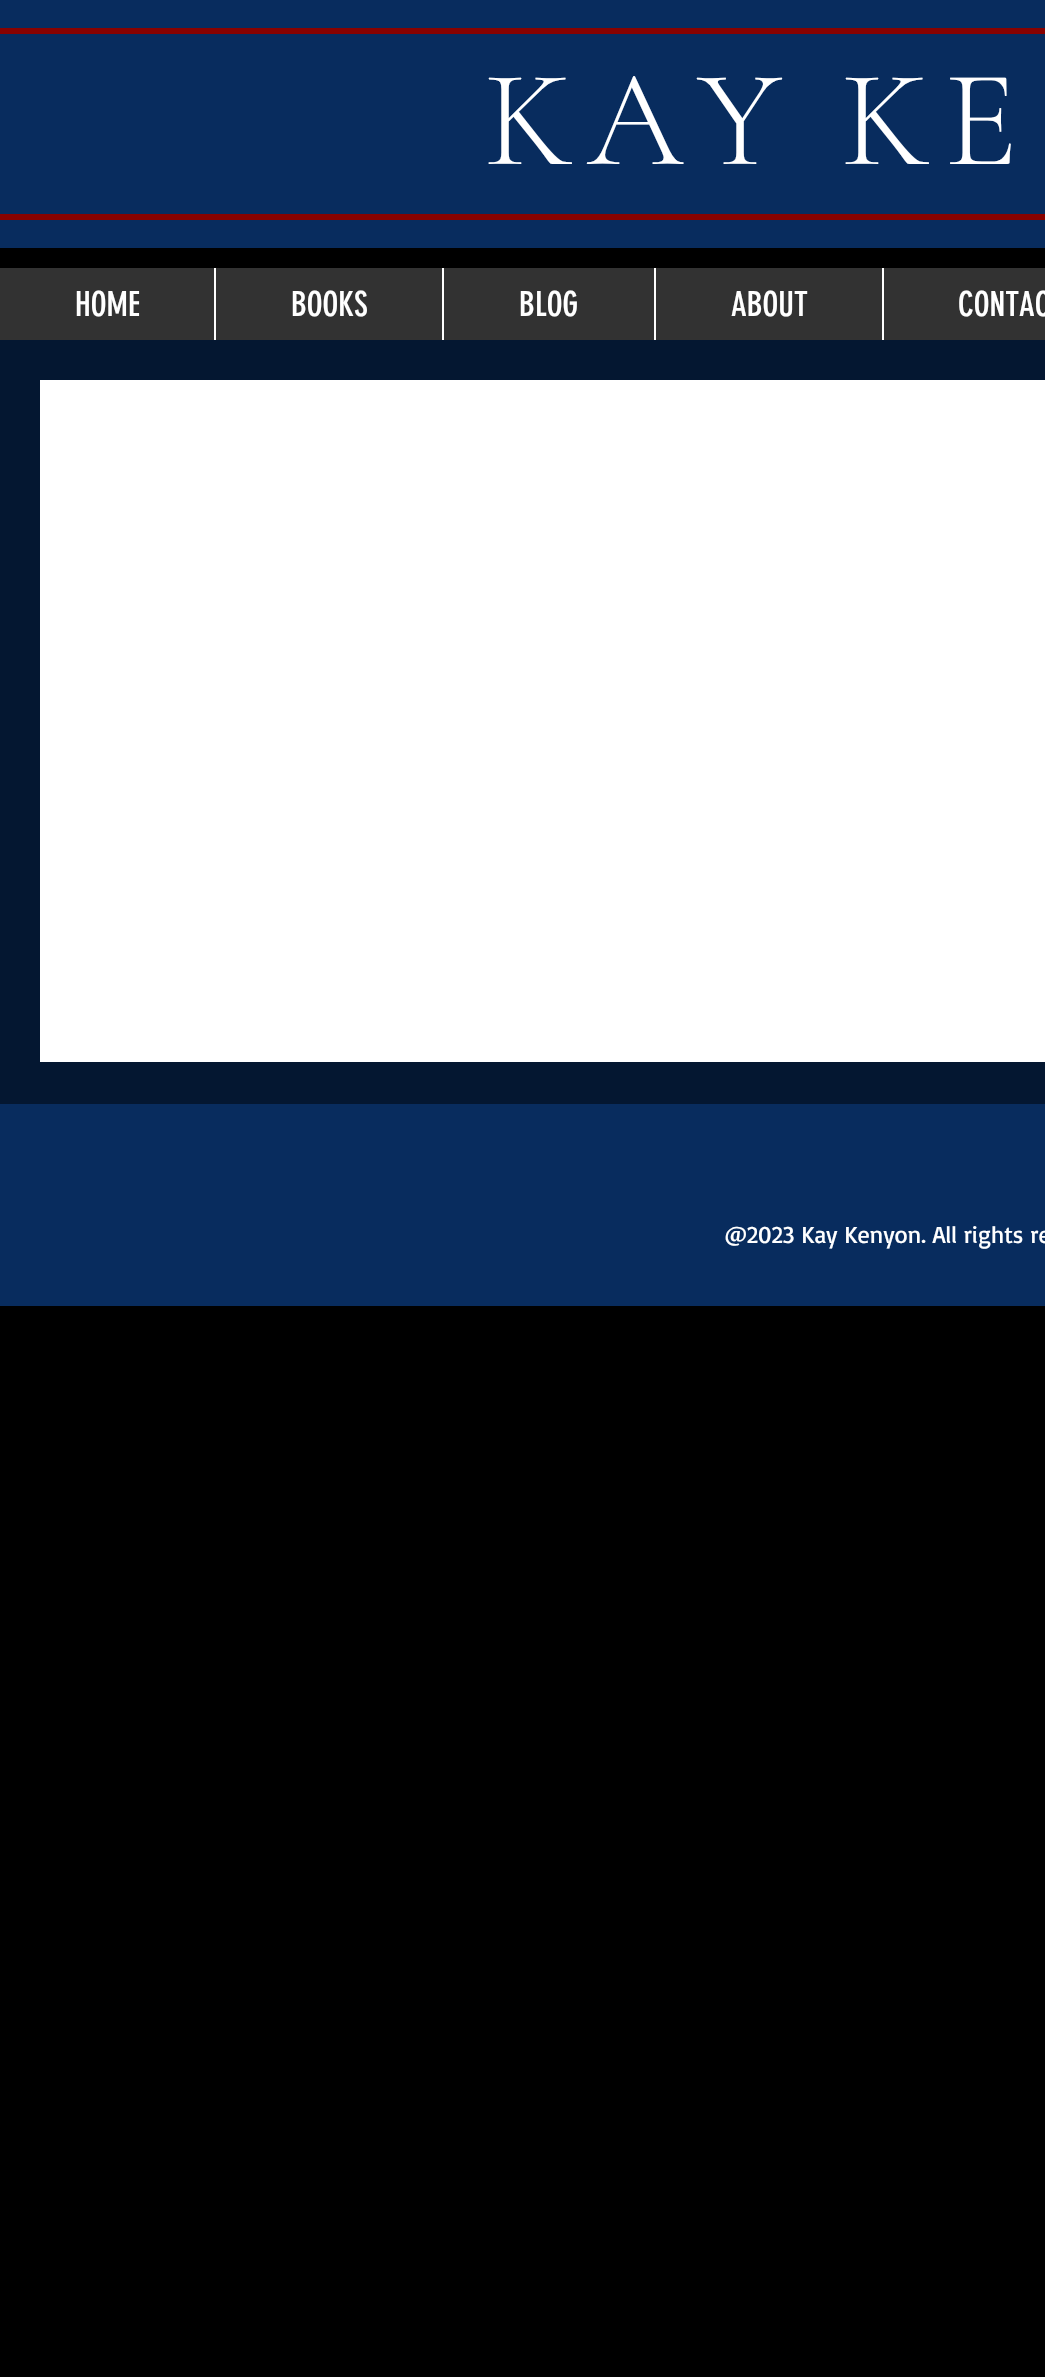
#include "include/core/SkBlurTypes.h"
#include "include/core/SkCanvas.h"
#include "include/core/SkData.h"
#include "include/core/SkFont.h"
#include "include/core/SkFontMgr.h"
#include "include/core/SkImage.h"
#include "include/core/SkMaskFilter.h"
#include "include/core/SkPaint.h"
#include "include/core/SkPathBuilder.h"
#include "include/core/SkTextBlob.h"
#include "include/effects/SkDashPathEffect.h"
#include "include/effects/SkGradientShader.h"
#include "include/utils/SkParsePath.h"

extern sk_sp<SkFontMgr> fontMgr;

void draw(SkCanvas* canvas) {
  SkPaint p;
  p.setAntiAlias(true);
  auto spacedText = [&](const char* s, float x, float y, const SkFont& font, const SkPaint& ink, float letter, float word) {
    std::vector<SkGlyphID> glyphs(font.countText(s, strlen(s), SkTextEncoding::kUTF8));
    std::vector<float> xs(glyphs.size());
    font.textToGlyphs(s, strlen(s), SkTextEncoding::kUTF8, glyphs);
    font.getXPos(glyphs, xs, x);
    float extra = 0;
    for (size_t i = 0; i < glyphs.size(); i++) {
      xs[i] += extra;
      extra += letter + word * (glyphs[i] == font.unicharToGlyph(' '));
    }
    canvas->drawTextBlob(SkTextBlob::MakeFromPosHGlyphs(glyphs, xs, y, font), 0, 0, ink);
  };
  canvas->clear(SK_ColorBLACK);
  p.setColor(SkColorSetRGB(8, 44, 94));
  canvas->drawRect(SkRect::MakeLTRB(0, 0, 1045, 248), p);
  p.setColor(SkColorSetRGB(136, 2, 0));
  canvas->drawRect(SkRect::MakeLTRB(0, 28, 1045, 34), p);
  canvas->drawRect(SkRect::MakeLTRB(0, 214, 1045, 220), p);
  p.setColor(SkColorSetRGB(50, 50, 50));
  canvas->drawRect(SkRect::MakeLTRB(0, 268, 1045, 340), p);
  p.setColor(SK_ColorWHITE);
  canvas->drawRect(SkRect::MakeLTRB(214, 268, 216, 342), p);
  canvas->drawRect(SkRect::MakeLTRB(442, 268, 444, 342), p);
  canvas->drawRect(SkRect::MakeLTRB(654, 268, 656, 342), p);
  canvas->drawRect(SkRect::MakeLTRB(882, 268, 884, 342), p);
  p.setColor(SkColorSetRGB(4, 23, 49));
  canvas->drawRect(SkRect::MakeLTRB(0, 340, 1045, 1104), p);
  p.setStyle(SkPaint::kStroke_Style);
  p.setStrokeWidth(2);
  p.setColor(SK_ColorWHITE);
  canvas->drawRect(SkRect::MakeLTRB(41, 381, 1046, 1061), p);
  p.setStyle(SkPaint::kFill_Style);
  canvas->drawRect(SkRect::MakeLTRB(42, 382, 1045, 1060), p);
  p.setColor(SkColorSetRGB(8, 44, 94));
  canvas->drawRect(SkRect::MakeLTRB(0, 1104, 1045, 1306), p);
  SkFont font1(fontMgr->matchFamilyStyle("Cormorant Garamond", SkFontStyle(300, SkFontStyle::kNormal_Width, SkFontStyle::kUpright_Slant)), 138);
  font1.setSubpixel(true);
  p.setColor(SK_ColorWHITE);
  spacedText("KAY KE", 484, 164, font1, p, 13.75f, 0);
  SkFont font2(fontMgr->matchFamilyStyle("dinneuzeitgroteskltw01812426", SkFontStyle::Normal()), 34);
  font2.setSubpixel(true);
  canvas->drawString("HOME", 75, 316, font2, p);
  canvas->drawString("BOOKS", 291, 316, font2, p);
  canvas->drawString("BLOG", 519, 316, font2, p);
  canvas->drawString("ABOUT", 731, 316, font2, p);
  canvas->drawString("CONTAC", 958, 316, font2, p);
  SkFont font3(fontMgr->matchFamilyStyle("Basic", SkFontStyle::Normal()), 24);
  font3.setSubpixel(true);
  canvas->drawString("@2023 Kay Kenyon. All rights re", 725, 1243, font3, p);
}
